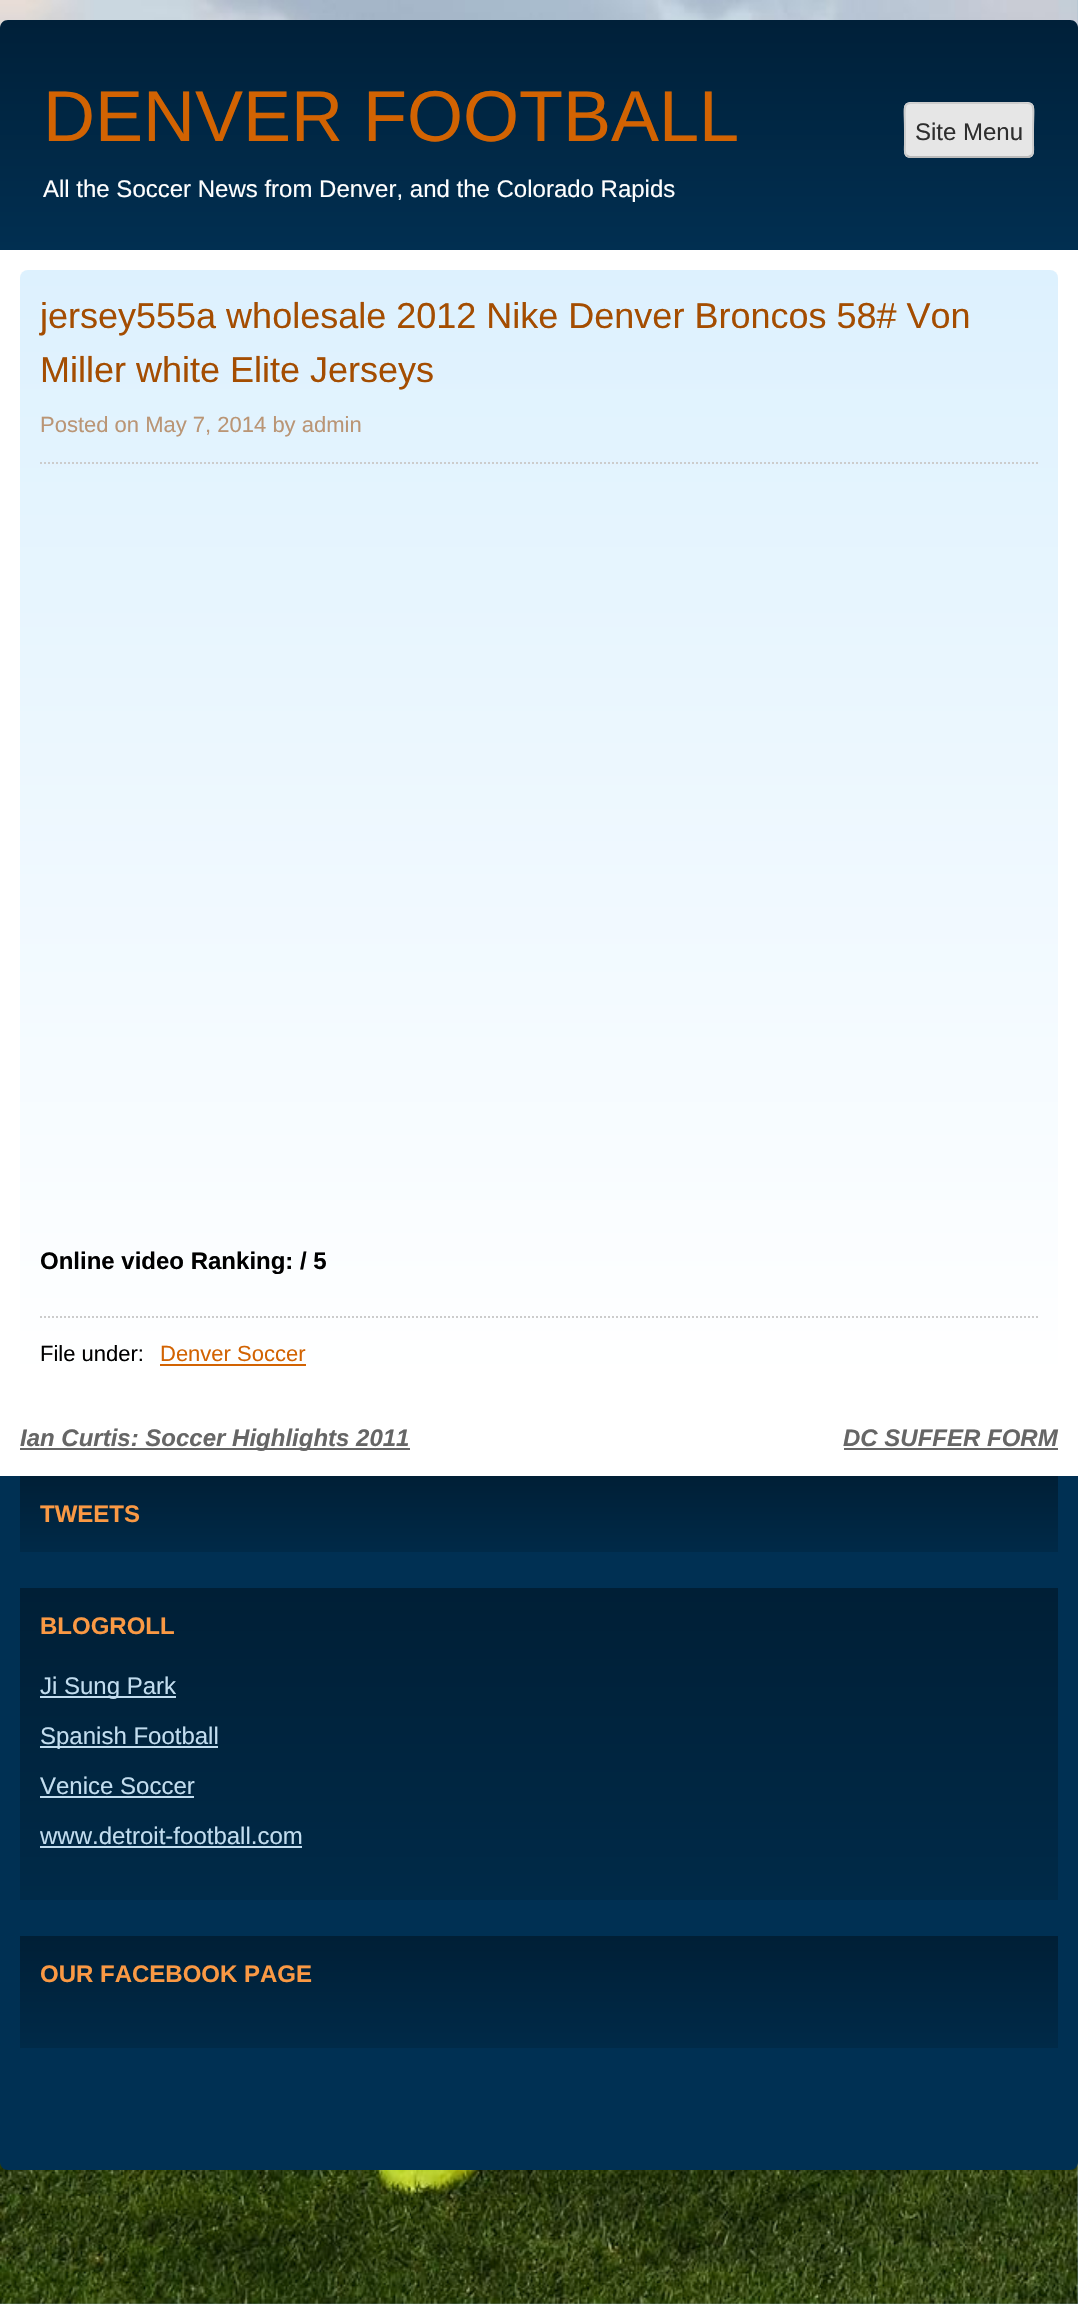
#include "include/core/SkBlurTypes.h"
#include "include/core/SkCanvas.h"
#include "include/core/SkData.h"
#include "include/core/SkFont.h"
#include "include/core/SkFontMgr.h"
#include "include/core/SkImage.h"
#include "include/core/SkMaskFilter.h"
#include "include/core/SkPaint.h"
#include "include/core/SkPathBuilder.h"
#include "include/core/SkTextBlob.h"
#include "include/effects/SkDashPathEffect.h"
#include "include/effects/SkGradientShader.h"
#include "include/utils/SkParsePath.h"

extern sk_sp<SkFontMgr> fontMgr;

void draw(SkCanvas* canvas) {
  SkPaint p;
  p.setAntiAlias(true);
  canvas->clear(SkColorSetRGB(154, 182, 202));
  canvas->drawImageRect(SkImages::DeferredFromEncodedData(SkData::MakeFromFileName("images/1.png")), SkRect::MakeLTRB(0, 0, 1078, 2304), SkSamplingOptions());
  {
    const SkColor colors[] = {SkColorSetRGB(0, 32, 57), SkColorSetRGB(1, 47, 81)};
    const float stops[] = {0, 1};
    const SkPoint ends[] = {{539, 20}, {539, 250}};
    p.setShader(SkGradientShader::MakeLinear(ends, colors, stops, 2, SkTileMode::kClamp));
    p.setAlpha(255);
  }
  canvas->drawPath(SkPathBuilder().moveTo(8, 20).lineTo(1070, 20).cubicTo(1074.5f, 20, 1078, 23.5f, 1078, 28).lineTo(1078, 250).lineTo(0, 250).lineTo(0, 28).cubicTo(0, 23.5f, 3.5f, 20, 8, 20).close().detach(), p);
  p.setShader(nullptr);
  p.setColor(SkColorSetRGB(230, 230, 230));
  canvas->drawRoundRect(SkRect::MakeLTRB(904, 102, 1034, 158), 6, 6, p);
  p.setStyle(SkPaint::kStroke_Style);
  p.setStrokeWidth(2);
  p.setColor(SkColorSetRGB(187, 187, 187));
  canvas->drawPath(SkPathBuilder().moveTo(1031.5f, 155.5f).lineTo(1028.5f, 157).lineTo(909.5f, 157).lineTo(906.5f, 155.5f).detach(), p);
  p.setColor(SkColorSetRGB(204, 204, 204));
  canvas->drawPath(SkPathBuilder().moveTo(906.5f, 155.5f).cubicTo(904, 153, 905, 147.5f, 905, 144.5f).lineTo(905, 130).cubicTo(905, 99, 899.5f, 103, 929.5f, 103).lineTo(1008.5f, 103).cubicTo(1038.5f, 103, 1033, 99, 1033, 130).lineTo(1033, 144.5f).cubicTo(1033, 147.5f, 1034, 153, 1031.5f, 155.5f).detach(), p);
  p.setStyle(SkPaint::kFill_Style);
  p.setColor(SK_ColorWHITE);
  canvas->drawRect(SkRect::MakeLTRB(0, 250, 1078, 1476), p);
  {
    const SkColor colors[] = {SkColorSetRGB(221, 241, 254), SK_ColorWHITE};
    const float stops[] = {0, 1};
    const SkPoint ends[] = {{539, 270}, {539, 1380}};
    p.setShader(SkGradientShader::MakeLinear(ends, colors, stops, 2, SkTileMode::kClamp));
    p.setAlpha(255);
  }
  canvas->drawRoundRect(SkRect::MakeLTRB(20, 270, 1058, 1380), 8, 8, p);
  p.setStyle(SkPaint::kStroke_Style);
  p.setShader(nullptr);
  p.setColor(SkColorSetRGB(204, 204, 204));
  p.setPathEffect(SkDashPathEffect::Make({{2, 2}}, 0));
  canvas->drawPath(SkPathBuilder().moveTo(40, 463).lineTo(1038, 463).detach(), p);
  p.setPathEffect(nullptr);
  p.setPathEffect(SkDashPathEffect::Make({{2, 2}}, 0));
  canvas->drawPath(SkPathBuilder().moveTo(40, 1317).lineTo(1038, 1317).detach(), p);
  p.setPathEffect(nullptr);
  p.setStyle(SkPaint::kFill_Style);
  p.setColor(SkColorSetRGB(210, 99, 2));
  canvas->drawRect(SkRect::MakeLTRB(160, 1364, 306, 1366), p);
  p.setColor(SkColorSetRGB(102, 102, 102));
  canvas->drawRect(SkRect::MakeLTRB(20, 1448, 410, 1450), p);
  canvas->drawRect(SkRect::MakeLTRB(844, 1448, 1058, 1450), p);
  p.setColor(SkColorSetRGB(0, 48, 83));
  canvas->drawRect(SkRect::MakeLTRB(0, 1476, 1078, 2084), p);
  {
    const SkColor colors[] = {SkColorSetRGB(0, 31, 54), SkColorSetRGB(0, 42, 72)};
    const float stops[] = {0, 1};
    const SkPoint ends[] = {{539, 1476}, {539, 1552}};
    p.setShader(SkGradientShader::MakeLinear(ends, colors, stops, 2, SkTileMode::kClamp));
    p.setAlpha(255);
  }
  canvas->drawRect(SkRect::MakeLTRB(20, 1476, 1058, 1552), p);
  {
    const SkColor colors[] = {SkColorSetRGB(0, 31, 54), SkColorSetRGB(0, 42, 72)};
    const float stops[] = {0, 1};
    const SkPoint ends[] = {{539, 1588}, {539, 1900}};
    p.setShader(SkGradientShader::MakeLinear(ends, colors, stops, 2, SkTileMode::kClamp));
    p.setAlpha(255);
  }
  canvas->drawRect(SkRect::MakeLTRB(20, 1588, 1058, 1900), p);
  p.setShader(nullptr);
  p.setColor(SkColorSetRGB(194, 221, 239));
  canvas->drawRect(SkRect::MakeLTRB(40, 1696, 176, 1698), p);
  canvas->drawRect(SkRect::MakeLTRB(40, 1746, 218, 1748), p);
  canvas->drawRect(SkRect::MakeLTRB(40, 1796, 194, 1798), p);
  canvas->drawRect(SkRect::MakeLTRB(40, 1846, 302, 1848), p);
  {
    const SkColor colors[] = {SkColorSetRGB(0, 31, 54), SkColorSetRGB(0, 42, 72)};
    const float stops[] = {0, 1};
    const SkPoint ends[] = {{539, 1936}, {539, 2048}};
    p.setShader(SkGradientShader::MakeLinear(ends, colors, stops, 2, SkTileMode::kClamp));
    p.setAlpha(255);
  }
  canvas->drawRect(SkRect::MakeLTRB(20, 1936, 1058, 2048), p);
  p.setShader(nullptr);
  p.setColor(SkColorSetRGB(0, 48, 83));
  canvas->drawPath(SkPathBuilder().moveTo(0, 2084).lineTo(1078, 2084).lineTo(1078, 2162).cubicTo(1078, 2166.5f, 1074.5f, 2170, 1070, 2170).lineTo(8, 2170).cubicTo(3.5f, 2170, 0, 2166.5f, 0, 2162).close().detach(), p);
  SkFont font1(fontMgr->matchFamilyStyle("Liberation Sans", SkFontStyle::Normal()), 72);
  font1.setSubpixel(true);
  p.setColor(SkColorSetRGB(210, 99, 2));
  canvas->drawString("DENVER FOOTBALL", 43, 141, font1, p);
  SkFont font2(fontMgr->matchFamilyStyle("Liberation Sans", SkFontStyle::Normal()), 24);
  font2.setSubpixel(true);
  p.setColor(SK_ColorWHITE);
  canvas->drawString("All the Soccer News from Denver, and the Colorado Rapids", 43, 197, font2, p);
  p.setColor(SkColorSetRGB(46, 46, 46));
  canvas->drawString("Site Menu", 915, 140, font2, p);
  SkFont font3(fontMgr->matchFamilyStyle("Liberation Sans", SkFontStyle::Normal()), 36);
  font3.setSubpixel(true);
  p.setColor(SkColorSetRGB(164, 77, 1));
  canvas->drawString("jersey555a wholesale 2012 Nike Denver Broncos 58# Von", 40, 328, font3, p);
  canvas->drawString("Miller white Elite Jerseys", 40, 382, font3, p);
  SkFont font4(fontMgr->matchFamilyStyle("Liberation Sans", SkFontStyle::Normal()), 22);
  font4.setSubpixel(true);
  p.setColor(SkColorSetRGB(186, 149, 117));
  canvas->drawString("Posted on May 7, 2014 by admin", 40, 432, font4, p);
  SkFont font5(fontMgr->matchFamilyStyle("Liberation Sans", SkFontStyle::Bold()), 24);
  font5.setSubpixel(true);
  p.setColor(SK_ColorBLACK);
  canvas->drawString("Online video Ranking: / 5", 40, 1269, font5, p);
  canvas->drawString("File under:", 40, 1361, font4, p);
  p.setColor(SkColorSetRGB(210, 99, 2));
  canvas->drawString("Denver Soccer", 160, 1361, font4, p);
  SkFont font6(fontMgr->matchFamilyStyle("Liberation Sans", SkFontStyle::BoldItalic()), 24);
  font6.setSubpixel(true);
  p.setColor(SkColorSetRGB(102, 102, 102));
  canvas->drawString("Ian Curtis: Soccer Highlights 2011", 20, 1446, font6, p);
  canvas->drawString("DC SUFFER FORM", 843, 1446, font6, p);
  p.setColor(SkColorSetRGB(250, 153, 68));
  canvas->drawString("TWEETS", 40, 1522, font5, p);
  canvas->drawString("BLOGROLL", 40, 1634, font5, p);
  p.setColor(SkColorSetRGB(194, 221, 239));
  canvas->drawString("Ji Sung Park", 40, 1694, font2, p);
  canvas->drawString("Spanish Football", 40, 1744, font2, p);
  canvas->drawString("Venice Soccer", 40, 1794, font2, p);
  canvas->drawString("www.detroit-football.com", 40, 1844, font2, p);
  p.setColor(SkColorSetRGB(250, 153, 68));
  canvas->drawString("OUR FACEBOOK PAGE", 40, 1982, font5, p);
}
